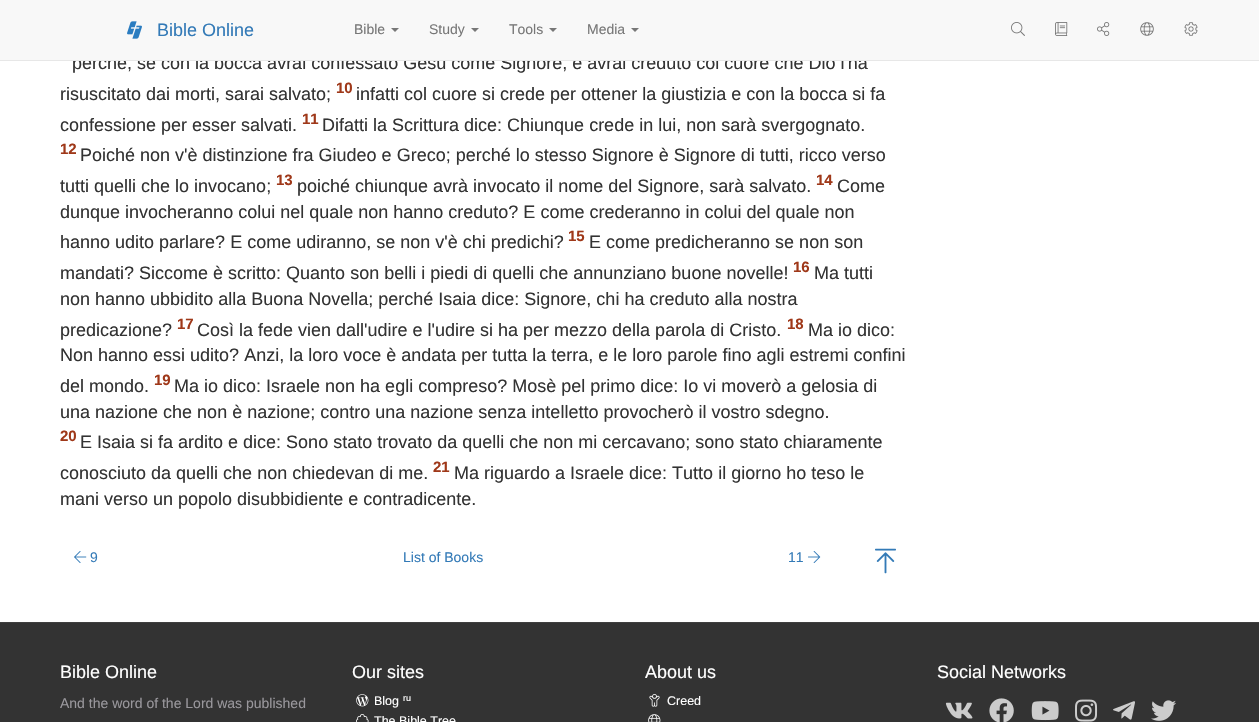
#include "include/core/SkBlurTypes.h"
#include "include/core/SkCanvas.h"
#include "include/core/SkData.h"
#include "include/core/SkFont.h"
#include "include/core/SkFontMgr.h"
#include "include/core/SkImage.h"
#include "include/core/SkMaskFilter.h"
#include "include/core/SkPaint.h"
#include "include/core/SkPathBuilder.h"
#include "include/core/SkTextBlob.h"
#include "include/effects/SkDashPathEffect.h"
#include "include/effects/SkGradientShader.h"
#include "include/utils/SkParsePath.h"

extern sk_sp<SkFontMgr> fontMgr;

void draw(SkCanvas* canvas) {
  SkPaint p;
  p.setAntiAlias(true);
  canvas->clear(SK_ColorWHITE);
  canvas->drawImageRect(SkImages::DeferredFromEncodedData(SkData::MakeFromFileName("images/7.png")), SkRect::MakeLTRB(74, 551, 87, 563), SkSamplingOptions());
  canvas->drawImageRect(SkImages::DeferredFromEncodedData(SkData::MakeFromFileName("images/8.png")), SkRect::MakeLTRB(808, 551, 821, 563), SkSamplingOptions());
  canvas->drawImageRect(SkImages::DeferredFromEncodedData(SkData::MakeFromFileName("images/9.png")), SkRect::MakeLTRB(875, 548, 896, 574), SkSamplingOptions());
  p.setColor(SkColorSetRGB(51, 51, 51));
  canvas->drawRect(SkRect::MakeLTRB(0, 623, 1259, 722), p);
  p.setColor(SkColorSetRGB(63, 63, 63));
  canvas->drawRect(SkRect::MakeLTRB(0, 622, 1259, 623), p);
  canvas->drawImageRect(SkImages::DeferredFromEncodedData(SkData::MakeFromFileName("images/10.png")), SkRect::MakeLTRB(356, 694, 369, 707), SkSamplingOptions());
  canvas->drawImageRect(SkImages::DeferredFromEncodedData(SkData::MakeFromFileName("images/11.png")), SkRect::MakeLTRB(356, 714, 369, 722), SkSamplingOptions());
  canvas->drawImageRect(SkImages::DeferredFromEncodedData(SkData::MakeFromFileName("images/12.png")), SkRect::MakeLTRB(649, 694, 660, 707), SkSamplingOptions());
  canvas->drawImageRect(SkImages::DeferredFromEncodedData(SkData::MakeFromFileName("images/13.png")), SkRect::MakeLTRB(648, 714, 661, 722), SkSamplingOptions());
  canvas->drawImageRect(SkImages::DeferredFromEncodedData(SkData::MakeFromFileName("images/14.png")), SkRect::MakeLTRB(945, 702, 973, 719), SkSamplingOptions());
  canvas->drawImageRect(SkImages::DeferredFromEncodedData(SkData::MakeFromFileName("images/15.png")), SkRect::MakeLTRB(989, 698, 1014, 722), SkSamplingOptions());
  canvas->drawImageRect(SkImages::DeferredFromEncodedData(SkData::MakeFromFileName("images/16.png")), SkRect::MakeLTRB(1031, 701, 1059, 721), SkSamplingOptions());
  canvas->drawImageRect(SkImages::DeferredFromEncodedData(SkData::MakeFromFileName("images/17.png")), SkRect::MakeLTRB(1075, 699, 1098, 722), SkSamplingOptions());
  canvas->drawImageRect(SkImages::DeferredFromEncodedData(SkData::MakeFromFileName("images/18.png")), SkRect::MakeLTRB(1113, 701, 1135, 720), SkSamplingOptions());
  canvas->drawImageRect(SkImages::DeferredFromEncodedData(SkData::MakeFromFileName("images/19.png")), SkRect::MakeLTRB(1151, 700, 1176, 721), SkSamplingOptions());
  SkFont font1(fontMgr->matchFamilyStyle("Liberation Sans", SkFontStyle::Normal()), 18);
  font1.setSubpixel(true);
  p.setColor(SkColorSetRGB(51, 51, 51));
  canvas->drawString("perché, se con la bocca avrai confessato Gesù come Signore, e avrai creduto col cuore che Dio l'ha", 72, 69, font1, p);
  p.setColor(SkColorSetRGB(248, 248, 248));
  canvas->drawRect(SkRect::MakeLTRB(0, 0, 1259, 60), p);
  canvas->drawImageRect(SkImages::DeferredFromEncodedData(SkData::MakeFromFileName("images/6.png")), SkRect::MakeLTRB(1184, 22, 1198, 36), SkSamplingOptions());
  canvas->drawImageRect(SkImages::DeferredFromEncodedData(SkData::MakeFromFileName("images/5.png")), SkRect::MakeLTRB(1140, 22, 1154, 36), SkSamplingOptions());
  canvas->drawImageRect(SkImages::DeferredFromEncodedData(SkData::MakeFromFileName("images/4.png")), SkRect::MakeLTRB(1097, 22, 1110, 36), SkSamplingOptions());
  canvas->drawImageRect(SkImages::DeferredFromEncodedData(SkData::MakeFromFileName("images/3.png")), SkRect::MakeLTRB(1055, 22, 1068, 36), SkSamplingOptions());
  canvas->drawImageRect(SkImages::DeferredFromEncodedData(SkData::MakeFromFileName("images/2.png")), SkRect::MakeLTRB(1011, 22, 1025, 36), SkSamplingOptions());
  p.setColor(SkColorSetRGB(119, 119, 119));
  canvas->drawPath(SkPathBuilder().moveTo(631, 28).lineTo(639, 28).lineTo(635, 32).close().detach(), p);
  SkFont font2(fontMgr->matchFamilyStyle("Liberation Sans", SkFontStyle::Normal()), 14);
  font2.setSubpixel(true);
  canvas->drawString("Media", 587, 34, font2, p);
  canvas->drawPath(SkPathBuilder().moveTo(549, 28).lineTo(557, 28).lineTo(553, 32).close().detach(), p);
  canvas->drawString("Tools", 509, 34, font2, p);
  canvas->drawPath(SkPathBuilder().moveTo(471, 28).lineTo(479, 28).lineTo(475, 32).close().detach(), p);
  canvas->drawString("Study", 429, 34, font2, p);
  canvas->drawPath(SkPathBuilder().moveTo(391, 28).lineTo(399, 28).lineTo(395, 32).close().detach(), p);
  canvas->drawString("Bible", 354, 34, font2, p);
  p.setColor(SkColorSetRGB(51, 122, 183));
  canvas->drawString("Bible Online", 157, 36, font1, p);
  canvas->drawImageRect(SkImages::DeferredFromEncodedData(SkData::MakeFromFileName("images/1.png")), SkRect::MakeLTRB(127, 21, 142, 39), SkSamplingOptions());
  p.setColor(SkColorSetRGB(231, 231, 231));
  canvas->drawRect(SkRect::MakeLTRB(0, 60, 1259, 61), p);
  p.setColor(SkColorSetRGB(51, 51, 51));
  canvas->drawString("risuscitato dai morti, sarai salvato;", 60, 100, font1, p);
  SkFont font3(fontMgr->matchFamilyStyle("Liberation Sans", SkFontStyle::Bold()), 15);
  font3.setSubpixel(true);
  p.setColor(SkColorSetRGB(159, 56, 25));
  canvas->drawString("10", 336, 93, font3, p);
  p.setColor(SkColorSetRGB(51, 51, 51));
  canvas->drawString("infatti col cuore si crede per ottener la giustizia e con la bocca si fa", 356, 100, font1, p);
  canvas->drawString("confessione per esser salvati.", 60, 131, font1, p);
  p.setColor(SkColorSetRGB(159, 56, 25));
  canvas->drawString("11", 302, 124, font3, p);
  p.setColor(SkColorSetRGB(51, 51, 51));
  canvas->drawString("Difatti la Scrittura dice: Chiunque crede in lui, non sarà svergognato.", 322, 131, font1, p);
  p.setColor(SkColorSetRGB(159, 56, 25));
  canvas->drawString("12", 60, 154, font3, p);
  p.setColor(SkColorSetRGB(51, 51, 51));
  canvas->drawString("Poiché non v'è distinzione fra Giudeo e Greco; perché lo stesso Signore è Signore di tutti, ricco verso", 80, 161, font1, p);
  canvas->drawString("tutti quelli che lo invocano;", 60, 192, font1, p);
  p.setColor(SkColorSetRGB(159, 56, 25));
  canvas->drawString("13", 276, 185, font3, p);
  p.setColor(SkColorSetRGB(51, 51, 51));
  canvas->drawString("poiché chiunque avrà invocato il nome del Signore, sarà salvato.", 297, 192, font1, p);
  p.setColor(SkColorSetRGB(159, 56, 25));
  canvas->drawString("14", 816, 185, font3, p);
  p.setColor(SkColorSetRGB(51, 51, 51));
  canvas->drawString("Come", 837, 192, font1, p);
  canvas->drawString("dunque invocheranno colui nel quale non hanno creduto? E come crederanno in colui del quale non", 60, 218, font1, p);
  canvas->drawString("hanno udito parlare? E come udiranno, se non v'è chi predichi?", 60, 248, font1, p);
  p.setColor(SkColorSetRGB(159, 56, 25));
  canvas->drawString("15", 568, 241, font3, p);
  p.setColor(SkColorSetRGB(51, 51, 51));
  canvas->drawString("E come predicheranno se non son", 589, 248, font1, p);
  canvas->drawString("mandati? Siccome è scritto: Quanto son belli i piedi di quelli che annunziano buone novelle!", 60, 279, font1, p);
  p.setColor(SkColorSetRGB(159, 56, 25));
  canvas->drawString("16", 793, 272, font3, p);
  p.setColor(SkColorSetRGB(51, 51, 51));
  canvas->drawString("Ma tutti", 814, 279, font1, p);
  canvas->drawString("non hanno ubbidito alla Buona Novella; perché Isaia dice: Signore, chi ha creduto alla nostra", 60, 305, font1, p);
  canvas->drawString("predicazione?", 60, 336, font1, p);
  p.setColor(SkColorSetRGB(159, 56, 25));
  canvas->drawString("17", 177, 329, font3, p);
  p.setColor(SkColorSetRGB(51, 51, 51));
  canvas->drawString("Così la fede vien dall'udire e l'udire si ha per mezzo della parola di Cristo.", 197, 336, font1, p);
  p.setColor(SkColorSetRGB(159, 56, 25));
  canvas->drawString("18", 787, 329, font3, p);
  p.setColor(SkColorSetRGB(51, 51, 51));
  canvas->drawString("Ma io dico:", 808, 336, font1, p);
  canvas->drawString("Non hanno essi udito? Anzi, la loro voce è andata per tutta la terra, e le loro parole fino agli estremi confini", 60, 361, font1, p);
  canvas->drawString("del mondo.", 60, 392, font1, p);
  p.setColor(SkColorSetRGB(159, 56, 25));
  canvas->drawString("19", 154, 385, font3, p);
  p.setColor(SkColorSetRGB(51, 51, 51));
  canvas->drawString("Ma io dico: Israele non ha egli compreso? Mosè pel primo dice: Io vi moverò a gelosia di", 174, 392, font1, p);
  canvas->drawString("una nazione che non è nazione; contro una nazione senza intelletto provocherò il vostro sdegno.", 60, 418, font1, p);
  p.setColor(SkColorSetRGB(159, 56, 25));
  canvas->drawString("20", 60, 441, font3, p);
  p.setColor(SkColorSetRGB(51, 51, 51));
  canvas->drawString("E Isaia si fa ardito e dice: Sono stato trovato da quelli che non mi cercavano; sono stato chiaramente", 80, 448, font1, p);
  canvas->drawString("conosciuto da quelli che non chiedevan di me.", 60, 479, font1, p);
  p.setColor(SkColorSetRGB(159, 56, 25));
  canvas->drawString("21", 433, 472, font3, p);
  p.setColor(SkColorSetRGB(51, 51, 51));
  canvas->drawString("Ma riguardo a Israele dice: Tutto il giorno ho teso le", 454, 479, font1, p);
  canvas->drawString("mani verso un popolo disubbidiente e contradicente.", 60, 505, font1, p);
  p.setColor(SkColorSetRGB(51, 122, 183));
  canvas->drawString("9", 90, 562, font2, p);
  canvas->drawString("List of Books", 403, 562, font2, p);
  canvas->drawString("11", 788, 562, font2, p);
  p.setColor(SK_ColorWHITE);
  canvas->drawString("Bible Online", 60, 678, font1, p);
  p.setColor(SkColorSetRGB(153, 151, 156));
  canvas->drawString("And the word of the Lord was published", 60, 708, font2, p);
  p.setColor(SK_ColorWHITE);
  canvas->drawString("Our sites", 352, 678, font1, p);
  SkFont font4(fontMgr->matchFamilyStyle("Liberation Sans", SkFontStyle::Normal()), 12.5f);
  font4.setSubpixel(true);
  canvas->drawString("Blog", 374, 705, font4, p);
  SkFont font5(fontMgr->matchFamilyStyle("Liberation Sans", SkFontStyle::Normal()), 9);
  font5.setSubpixel(true);
  canvas->drawString("ru", 403, 701, font5, p);
  canvas->drawString("The Bible Tree", 374, 725, font4, p);
  canvas->drawString("About us", 645, 678, font1, p);
  canvas->drawString("Creed", 667, 705, font4, p);
  canvas->drawString("Social Networks", 937, 678, font1, p);
}
